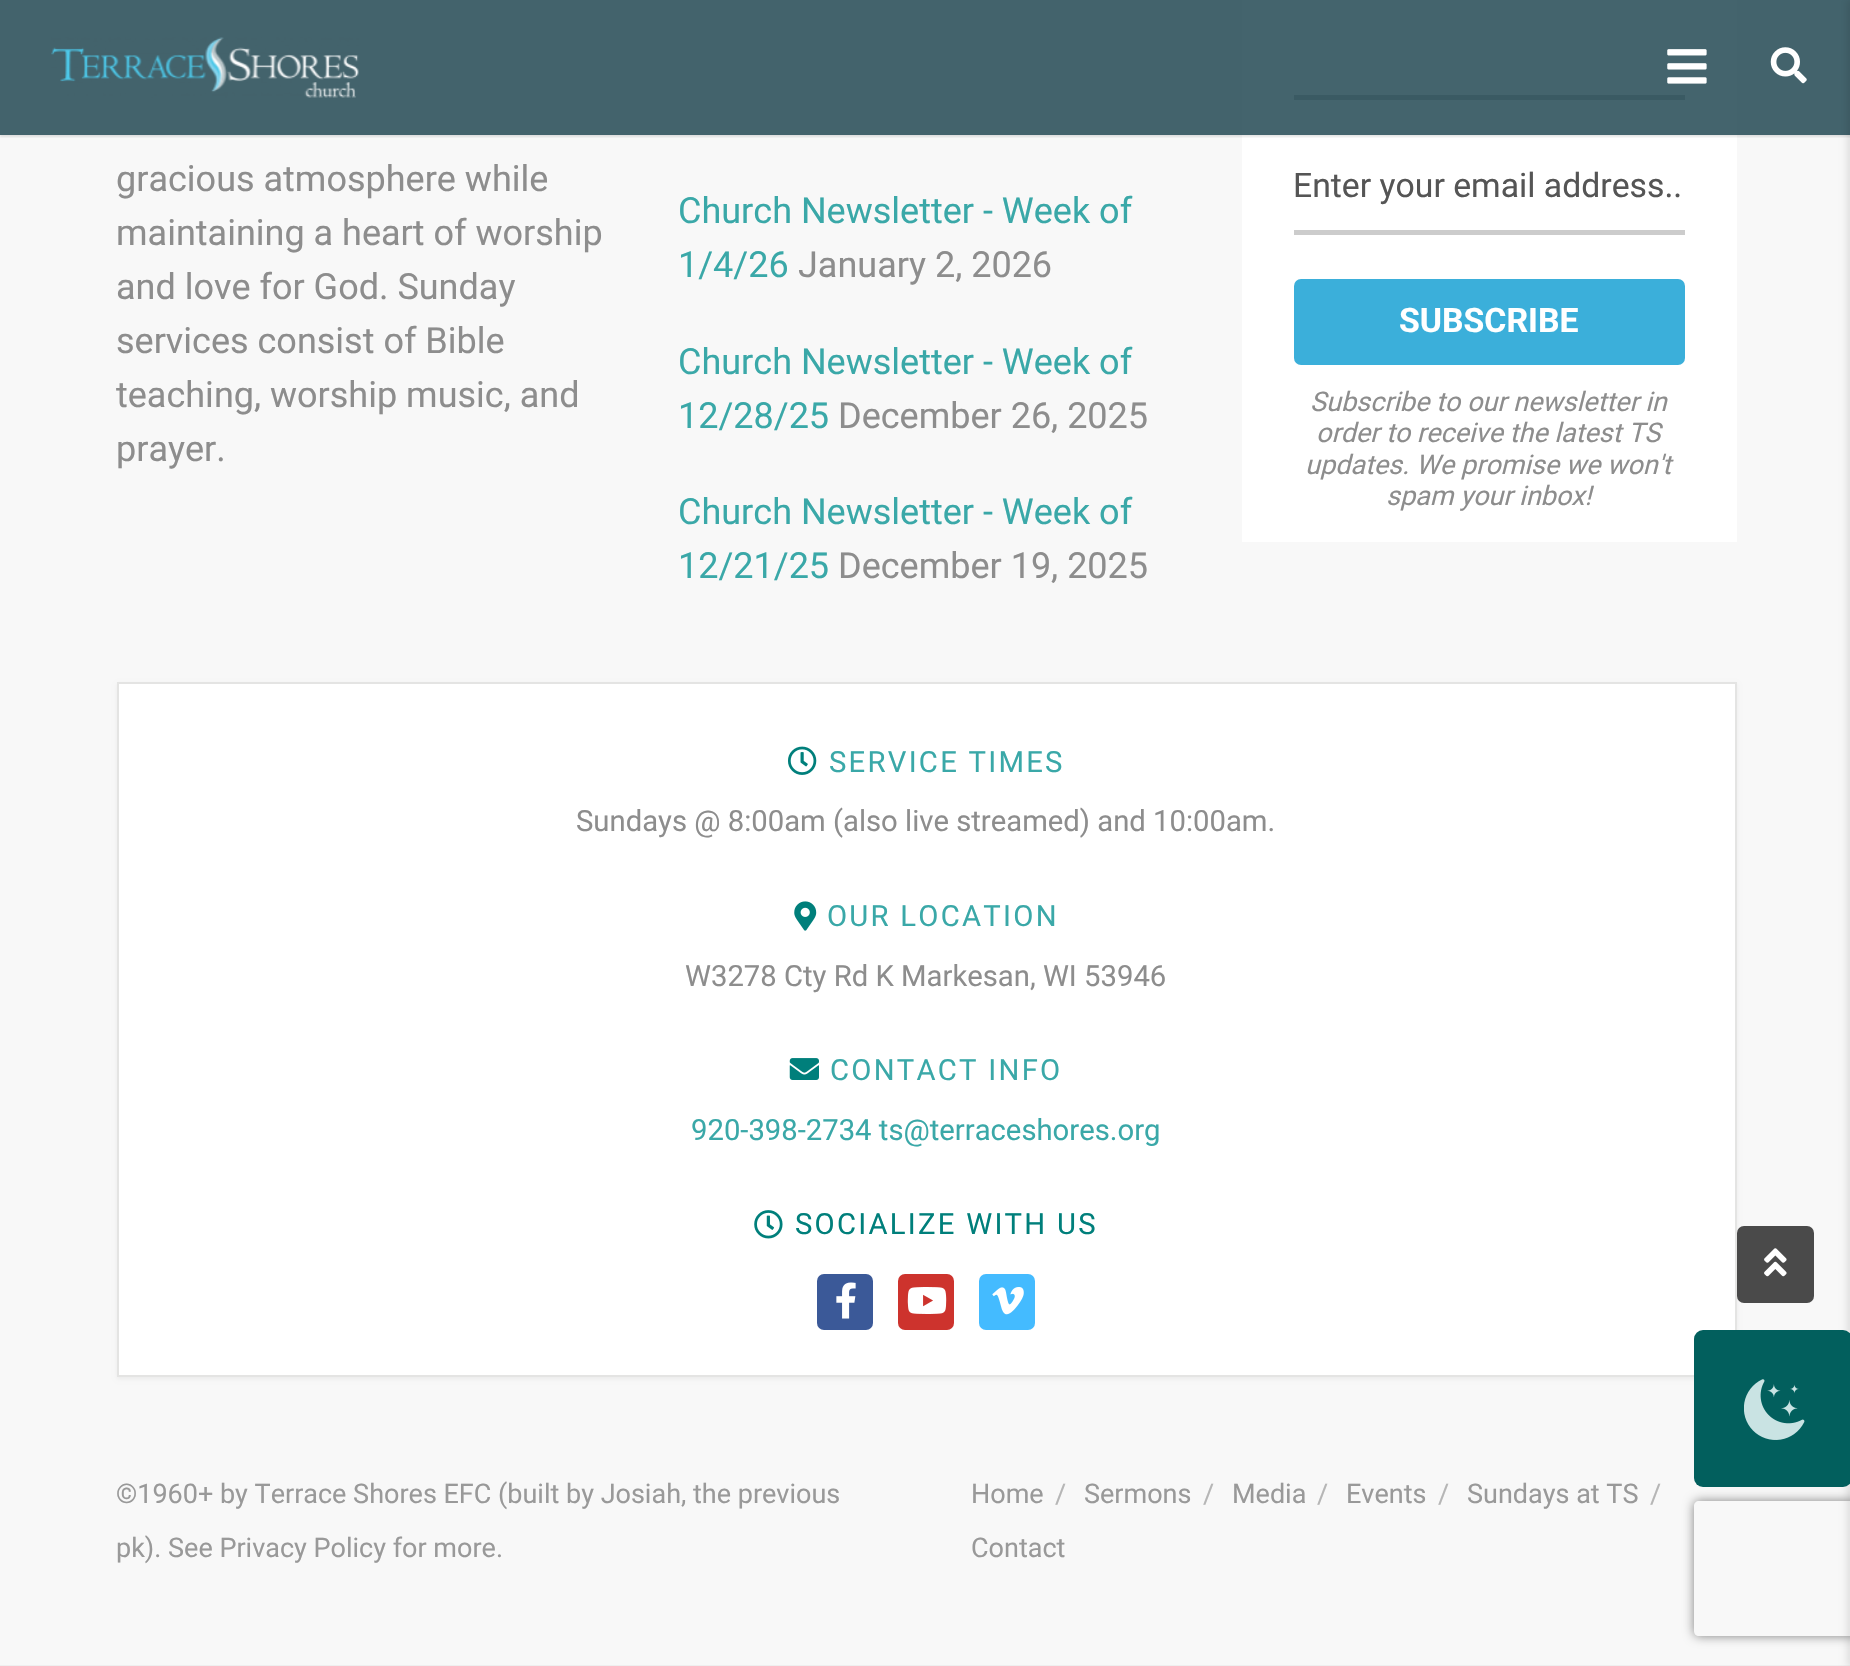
#include "include/core/SkBlurTypes.h"
#include "include/core/SkCanvas.h"
#include "include/core/SkData.h"
#include "include/core/SkFont.h"
#include "include/core/SkFontMgr.h"
#include "include/core/SkImage.h"
#include "include/core/SkMaskFilter.h"
#include "include/core/SkPaint.h"
#include "include/core/SkPathBuilder.h"
#include "include/core/SkTextBlob.h"
#include "include/effects/SkDashPathEffect.h"
#include "include/effects/SkGradientShader.h"
#include "include/utils/SkParsePath.h"

extern sk_sp<SkFontMgr> fontMgr;

void draw(SkCanvas* canvas) {
  SkPaint p;
  p.setAntiAlias(true);
  auto spacedText = [&](const char* s, float x, float y, const SkFont& font, const SkPaint& ink, float letter, float word) {
    std::vector<SkGlyphID> glyphs(font.countText(s, strlen(s), SkTextEncoding::kUTF8));
    std::vector<float> xs(glyphs.size());
    font.textToGlyphs(s, strlen(s), SkTextEncoding::kUTF8, glyphs);
    font.getXPos(glyphs, xs, x);
    float extra = 0;
    for (size_t i = 0; i < glyphs.size(); i++) {
      xs[i] += extra;
      extra += letter + word * (glyphs[i] == font.unicharToGlyph(' '));
    }
    canvas->drawTextBlob(SkTextBlob::MakeFromPosHGlyphs(glyphs, xs, y, font), 0, 0, ink);
  };
  canvas->clear(SkColorSetRGB(248, 248, 248));
  p.setColor(SK_ColorWHITE);
  canvas->drawRect(SkRect::MakeLTRB(1242, 0, 1737, 542), p);
  p.setColor(SkColorSetRGB(204, 204, 204));
  canvas->drawRect(SkRect::MakeLTRB(1294, 95, 1685, 100), p);
  canvas->save();
  canvas->clipRect(SkRect::MakeLTRB(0, 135, 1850, 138));
  p.setColor(SkColorSetARGB(26, 0, 0, 0));
  p.setMaskFilter(SkMaskFilter::MakeBlur(kNormal_SkBlurStyle, 1));
  canvas->drawRect(SkRect::MakeLTRB(0, 2, 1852, 137), p);
  p.setMaskFilter(nullptr);
  canvas->restore();
  p.setColor(SkColorSetARGB(204, 21, 61, 72));
  canvas->drawRect(SkRect::MakeLTRB(0, 0, 1850, 135), p);
  canvas->drawImageRect(SkImages::DeferredFromEncodedData(SkData::MakeFromFileName("images/1.png")), SkRect::MakeLTRB(51, 37, 359, 98), SkSamplingOptions());
  canvas->drawImageRect(SkImages::DeferredFromEncodedData(SkData::MakeFromFileName("images/2.png")), SkRect::MakeLTRB(1667, 49, 1707, 84), SkSamplingOptions());
  canvas->drawImageRect(SkImages::DeferredFromEncodedData(SkData::MakeFromFileName("images/3.png")), SkRect::MakeLTRB(1770, 47, 1807, 84), SkSamplingOptions());
  p.setColor(SkColorSetRGB(239, 239, 239));
  canvas->drawRect(SkRect::MakeLTRB(0, 1665, 1850, 1666), p);
  p.setColor(SkColorSetRGB(204, 204, 204));
  canvas->drawRect(SkRect::MakeLTRB(1294, 230, 1685, 235), p);
  p.setColor(SkColorSetRGB(59, 175, 218));
  canvas->drawRoundRect(SkRect::MakeLTRB(1294, 279, 1685, 365), 7, 7, p);
  p.setColor(SkColorSetRGB(74, 74, 74));
  canvas->drawRoundRect(SkRect::MakeLTRB(1737, 1226, 1814, 1303), 7, 7, p);
  p.setColor(SkColorSetARGB(13, 0, 0, 0));
  p.setMaskFilter(SkMaskFilter::MakeBlur(kNormal_SkBlurStyle, 2));
  canvas->drawRect(SkRect::MakeLTRB(117, 684, 1737, 1379), p);
  p.setMaskFilter(nullptr);
  p.setColor(SK_ColorWHITE);
  canvas->drawRect(SkRect::MakeLTRB(118, 683, 1736, 1376), p);
  p.setStyle(SkPaint::kStroke_Style);
  p.setStrokeWidth(2);
  p.setColor(SkColorSetRGB(228, 228, 227));
  canvas->drawRect(SkRect::MakeLTRB(118, 683, 1736, 1376), p);
  canvas->drawImageRect(SkImages::DeferredFromEncodedData(SkData::MakeFromFileName("images/4.png")), SkRect::MakeLTRB(788, 746, 817, 775), SkSamplingOptions());
  canvas->drawImageRect(SkImages::DeferredFromEncodedData(SkData::MakeFromFileName("images/5.png")), SkRect::MakeLTRB(794, 901, 817, 931), SkSamplingOptions());
  canvas->drawImageRect(SkImages::DeferredFromEncodedData(SkData::MakeFromFileName("images/6.png")), SkRect::MakeLTRB(789, 1058, 819, 1080), SkSamplingOptions());
  canvas->drawImageRect(SkImages::DeferredFromEncodedData(SkData::MakeFromFileName("images/7.png")), SkRect::MakeLTRB(754, 1210, 783, 1239), SkSamplingOptions());
  p.setStyle(SkPaint::kFill_Style);
  p.setColor(SkColorSetRGB(59, 89, 152));
  canvas->drawRoundRect(SkRect::MakeLTRB(817, 1274, 873, 1330), 7, 7, p);
  canvas->drawImageRect(SkImages::DeferredFromEncodedData(SkData::MakeFromFileName("images/8.png")), SkRect::MakeLTRB(836, 1282, 856, 1319), SkSamplingOptions());
  p.setColor(SkColorSetRGB(205, 51, 45));
  canvas->drawRoundRect(SkRect::MakeLTRB(898, 1274, 954, 1330), 7, 7, p);
  canvas->drawImageRect(SkImages::DeferredFromEncodedData(SkData::MakeFromFileName("images/9.png")), SkRect::MakeLTRB(907, 1287, 947, 1314), SkSamplingOptions());
  p.setColor(SkColorSetRGB(68, 187, 255));
  canvas->drawRoundRect(SkRect::MakeLTRB(979, 1274, 1035, 1330), 7, 7, p);
  canvas->drawImageRect(SkImages::DeferredFromEncodedData(SkData::MakeFromFileName("images/10.png")), SkRect::MakeLTRB(992, 1287, 1024, 1315), SkSamplingOptions());
  canvas->drawImageRect(SkImages::DeferredFromEncodedData(SkData::MakeFromFileName("images/11.png")), SkRect::MakeLTRB(1764, 1248, 1787, 1277), SkSamplingOptions());
  p.setColor(SkColorSetARGB(26, 0, 0, 0));
  p.setMaskFilter(SkMaskFilter::MakeBlur(kNormal_SkBlurStyle, 3.5f));
  canvas->drawRect(SkRect::MakeLTRB(1847, 0, 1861, 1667), p);
  p.setMaskFilter(nullptr);
  p.setColor(SkColorSetRGB(2, 95, 93));
  canvas->drawRoundRect(SkRect::MakeLTRB(1694, 1330, 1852, 1487), 9, 9, p);
  canvas->drawImageRect(SkImages::DeferredFromEncodedData(SkData::MakeFromFileName("images/12.png")), SkRect::MakeLTRB(1744, 1379, 1805, 1440), SkSamplingOptions());
  canvas->save();
  canvas->clipPath(SkPathBuilder(SkPathFillType::kEvenOdd).moveTo(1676, 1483).lineTo(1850, 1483).lineTo(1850, 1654).lineTo(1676, 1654).close().moveTo(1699, 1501).lineTo(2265, 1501).cubicTo(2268, 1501, 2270, 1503, 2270, 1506).lineTo(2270, 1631).cubicTo(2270, 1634, 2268, 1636, 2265, 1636).lineTo(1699, 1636).cubicTo(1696, 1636, 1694, 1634, 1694, 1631).lineTo(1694, 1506).cubicTo(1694, 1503, 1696, 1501, 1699, 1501).close().detach(), true);
  p.setColor(SkColorSetRGB(128, 128, 128));
  p.setMaskFilter(SkMaskFilter::MakeBlur(kNormal_SkBlurStyle, 5.5f));
  canvas->drawRoundRect(SkRect::MakeLTRB(1694, 1501, 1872, 1636), 5, 5, p);
  p.setMaskFilter(nullptr);
  canvas->restore();
  SkFont font1(fontMgr->matchFamilyStyle("Roboto", SkFontStyle::Normal()), 36);
  font1.setSubpixel(true);
  p.setColor(SkColorSetRGB(141, 141, 141));
  canvas->drawString("gracious atmosphere while", 116, 191, font1, p);
  canvas->drawString("maintaining a heart of worship", 116, 245, font1, p);
  canvas->drawString("and love for God. Sunday", 116, 299, font1, p);
  canvas->drawString("services consist of Bible", 116, 353, font1, p);
  canvas->drawString("teaching, worship music, and", 116, 407, font1, p);
  canvas->drawString("prayer.", 116, 461, font1, p);
  p.setColor(SkColorSetRGB(58, 168, 168));
  canvas->drawString("Church Newsletter - Week of", 678, 223, font1, p);
  canvas->drawString("1/4/26", 678, 277, font1, p);
  p.setColor(SkColorSetRGB(141, 141, 141));
  canvas->drawString("January 2, 2026", 798, 277, font1, p);
  p.setColor(SkColorSetRGB(58, 168, 168));
  canvas->drawString("Church Newsletter - Week of", 678, 374, font1, p);
  canvas->drawString("12/28/25", 678, 428, font1, p);
  p.setColor(SkColorSetRGB(141, 141, 141));
  canvas->drawString("December 26, 2025", 838, 428, font1, p);
  p.setColor(SkColorSetRGB(58, 168, 168));
  canvas->drawString("Church Newsletter - Week of", 678, 524, font1, p);
  canvas->drawString("12/21/25", 678, 578, font1, p);
  p.setColor(SkColorSetRGB(141, 141, 141));
  canvas->drawString("December 19, 2025", 838, 578, font1, p);
  SkFont font2(fontMgr->matchFamilyStyle("Roboto", SkFontStyle::Normal()), 33.75f);
  font2.setSubpixel(true);
  p.setColor(SkColorSetRGB(85, 85, 85));
  canvas->drawString("Enter your email address..", 1293, 197, font2, p);
  SkFont font3(fontMgr->matchFamilyStyle("Roboto", SkFontStyle::Bold()), 33.75f);
  font3.setSubpixel(true);
  p.setColor(SK_ColorWHITE);
  canvas->drawString("SUBSCRIBE", 1399, 332, font3, p);
  SkFont font4(fontMgr->matchFamilyStyle("Roboto", SkFontStyle::Italic()), 27);
  font4.setSubpixel(true);
  p.setColor(SkColorSetRGB(141, 141, 141));
  canvas->drawString("Subscribe to our newsletter in", 1310, 411, font4, p);
  canvas->drawString("order to receive the latest TS", 1316, 442, font4, p);
  canvas->drawString("updates. We promise we won't", 1305, 474, font4, p);
  canvas->drawString("spam your inbox!", 1386, 505, font4, p);
  SkFont font5(fontMgr->matchFamilyStyle("Roboto", SkFontStyle::Normal()), 29.25f);
  font5.setSubpixel(true);
  p.setColor(SkColorSetRGB(58, 168, 168));
  spacedText("SERVICE TIMES", 829, 772, font5, p, 2.25f, 0);
  p.setColor(SkColorSetRGB(141, 141, 141));
  canvas->drawString("Sundays @ 8:00am (also live streamed) and 10:00am.", 576, 831, font5, p);
  p.setColor(SkColorSetRGB(58, 168, 168));
  spacedText("OUR LOCATION", 827, 926, font5, p, 2.25f, 0);
  p.setColor(SkColorSetRGB(141, 141, 141));
  canvas->drawString("W3278 Cty Rd K Markesan, WI 53946", 685, 986, font5, p);
  p.setColor(SkColorSetRGB(58, 168, 168));
  spacedText("CONTACT INFO", 830, 1080, font5, p, 2.25f, 0);
  canvas->drawString("920-398-2734 ts@terraceshores.org", 691, 1140, font5, p);
  p.setColor(SkColorSetRGB(0, 127, 123));
  spacedText("SOCIALIZE WITH US", 795, 1234, font5, p, 2.25f, 0);
  SkFont font6(fontMgr->matchFamilyStyle("Roboto", SkFontStyle::Normal()), 27);
  font6.setSubpixel(true);
  p.setColor(SkColorSetRGB(153, 153, 153));
  canvas->drawString("©1960+ by Terrace Shores EFC (built by Josiah, the previous", 116, 1503, font6, p);
  canvas->drawString("pk). See Privacy Policy for more.", 116, 1557, font6, p);
  canvas->drawString("Home", 971, 1503, font6, p);
  p.setColor(SkColorSetRGB(182, 182, 182));
  canvas->drawString("/", 1055, 1503, font6, p);
  p.setColor(SkColorSetRGB(153, 153, 153));
  canvas->drawString("Sermons", 1084, 1503, font6, p);
  p.setColor(SkColorSetRGB(182, 182, 182));
  canvas->drawString("/", 1203, 1503, font6, p);
  p.setColor(SkColorSetRGB(153, 153, 153));
  canvas->drawString("Media", 1232, 1503, font6, p);
  p.setColor(SkColorSetRGB(182, 182, 182));
  canvas->drawString("/", 1317, 1503, font6, p);
  p.setColor(SkColorSetRGB(153, 153, 153));
  canvas->drawString("Events", 1346, 1503, font6, p);
  p.setColor(SkColorSetRGB(182, 182, 182));
  canvas->drawString("/", 1438, 1503, font6, p);
  p.setColor(SkColorSetRGB(153, 153, 153));
  canvas->drawString("Sundays at TS", 1467, 1503, font6, p);
  p.setColor(SkColorSetRGB(182, 182, 182));
  canvas->drawString("/", 1650, 1503, font6, p);
  p.setColor(SkColorSetRGB(153, 153, 153));
  canvas->drawString("Contact", 971, 1557, font6, p);
}
